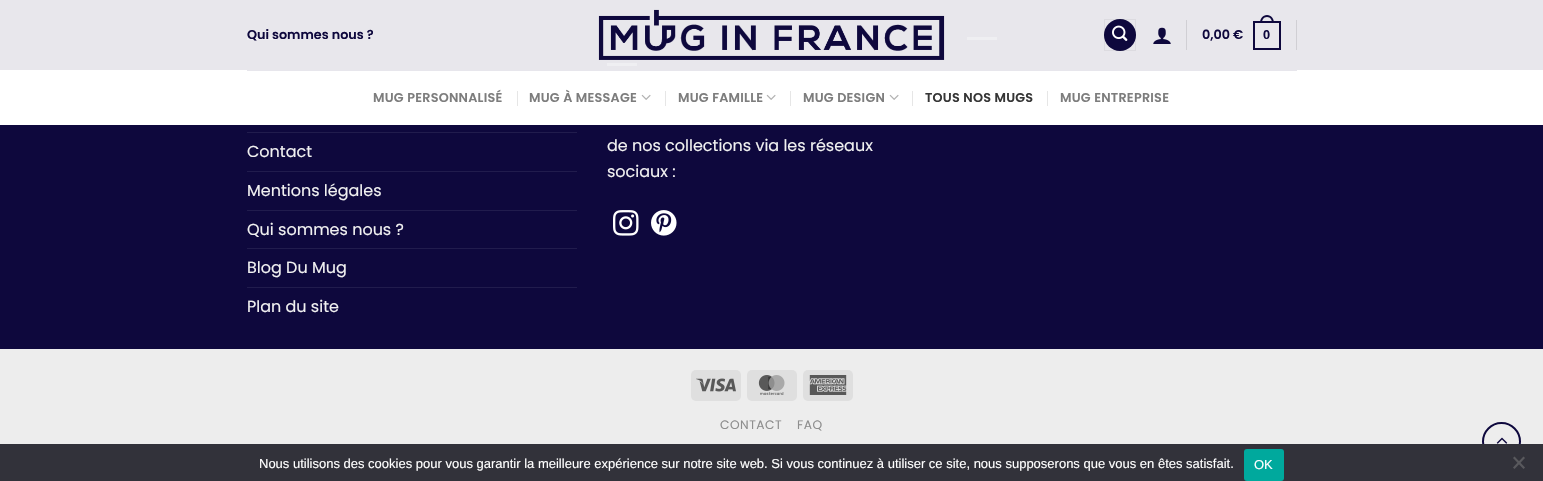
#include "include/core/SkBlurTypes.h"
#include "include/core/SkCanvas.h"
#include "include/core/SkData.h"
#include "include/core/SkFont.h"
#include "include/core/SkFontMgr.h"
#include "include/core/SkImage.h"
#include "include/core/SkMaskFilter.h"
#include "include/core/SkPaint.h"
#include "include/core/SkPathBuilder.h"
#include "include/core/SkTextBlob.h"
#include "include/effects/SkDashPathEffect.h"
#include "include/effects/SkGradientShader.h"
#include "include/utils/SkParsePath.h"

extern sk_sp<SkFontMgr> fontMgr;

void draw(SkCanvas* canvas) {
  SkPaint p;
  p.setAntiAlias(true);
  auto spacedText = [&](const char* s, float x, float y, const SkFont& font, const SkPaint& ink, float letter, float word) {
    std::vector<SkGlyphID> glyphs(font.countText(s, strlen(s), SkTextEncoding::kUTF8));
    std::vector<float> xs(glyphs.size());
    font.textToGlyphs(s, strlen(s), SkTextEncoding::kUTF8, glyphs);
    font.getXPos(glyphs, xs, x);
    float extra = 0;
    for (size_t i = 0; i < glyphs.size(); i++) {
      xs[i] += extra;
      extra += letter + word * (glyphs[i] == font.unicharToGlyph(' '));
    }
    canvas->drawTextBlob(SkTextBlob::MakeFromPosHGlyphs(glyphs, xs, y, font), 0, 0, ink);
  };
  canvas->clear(SkColorSetRGB(14, 8, 61));
  p.setColor(SkColorSetRGB(86, 82, 119));
  canvas->drawRect(SkRect::MakeLTRB(967, 37, 997, 40), p);
  canvas->drawRect(SkRect::MakeLTRB(247, 37, 277, 40), p);
  canvas->drawRect(SkRect::MakeLTRB(607, 63, 637, 66), p);
  p.setColor(SkColorSetARGB(230, 255, 255, 255));
  canvas->drawRect(SkRect::MakeLTRB(0, 0, 1543, 70), p);
  canvas->drawImageRect(SkImages::DeferredFromEncodedData(SkData::MakeFromFileName("images/1.png")), SkRect::MakeLTRB(598, 9, 945, 60), SkSamplingOptions());
  p.setColor(SkColorSetRGB(14, 8, 61));
  canvas->drawCircle(1120, 35, 16, p);
  p.setStyle(SkPaint::kStroke_Style);
  p.setStrokeWidth(1);
  p.setColor(SkColorSetARGB(13, 0, 0, 0));
  canvas->drawRect(SkRect::MakeLTRB(1104.5f, 19.5f, 1135.5f, 50.5f), p);
  canvas->drawImageRect(SkImages::DeferredFromEncodedData(SkData::MakeFromFileName("images/2.png")), SkRect::MakeLTRB(1112, 25, 1128, 41), SkSamplingOptions());
  canvas->drawImageRect(SkImages::DeferredFromEncodedData(SkData::MakeFromFileName("images/3.png")), SkRect::MakeLTRB(1153, 27, 1171, 44), SkSamplingOptions());
  p.setStyle(SkPaint::kFill_Style);
  p.setColor(SkColorSetRGB(208, 207, 212));
  canvas->drawRect(SkRect::MakeLTRB(1186, 20, 1187, 50), p);
  p.setStyle(SkPaint::kStroke_Style);
  p.setStrokeWidth(2);
  p.setColor(SkColorSetRGB(14, 8, 61));
  canvas->drawRect(SkRect::MakeLTRB(1254, 22, 1280, 49), p);
  p.setStyle(SkPaint::kFill_Style);
  canvas->drawPath(SkPathBuilder(SkPathFillType::kEvenOdd).moveTo(1267, 15).cubicTo(1271.5f, 15, 1274, 19, 1274, 23).lineTo(1260, 23).cubicTo(1260, 19, 1262.5f, 15, 1267, 15).close().moveTo(1267, 17).cubicTo(1270.5f, 17, 1272, 20, 1272, 23).lineTo(1262, 23).cubicTo(1262, 20, 1263.5f, 17, 1267, 17).close().detach(), p);
  p.setColor(SkColorSetRGB(208, 207, 212));
  canvas->drawRect(SkRect::MakeLTRB(1296, 20, 1297, 50), p);
  p.setColor(SK_ColorWHITE);
  canvas->drawRect(SkRect::MakeLTRB(0, 70, 1543, 125), p);
  p.setColor(SkColorSetRGB(231, 230, 236));
  canvas->drawRect(SkRect::MakeLTRB(247, 70, 1297, 71), p);
  p.setColor(SkColorSetRGB(230, 230, 230));
  canvas->drawRect(SkRect::MakeLTRB(517, 91, 518, 106), p);
  canvas->drawImageRect(SkImages::DeferredFromEncodedData(SkData::MakeFromFileName("images/4.png")), SkRect::MakeLTRB(641, 94, 651, 100), SkSamplingOptions());
  canvas->drawRect(SkRect::MakeLTRB(665, 91, 666, 106), p);
  canvas->drawImageRect(SkImages::DeferredFromEncodedData(SkData::MakeFromFileName("images/4.png")), SkRect::MakeLTRB(766, 94, 776, 100), SkSamplingOptions());
  canvas->drawRect(SkRect::MakeLTRB(790, 91, 791, 106), p);
  canvas->drawImageRect(SkImages::DeferredFromEncodedData(SkData::MakeFromFileName("images/4.png")), SkRect::MakeLTRB(889, 94, 899, 100), SkSamplingOptions());
  canvas->drawRect(SkRect::MakeLTRB(912, 91, 913, 106), p);
  canvas->drawRect(SkRect::MakeLTRB(1047, 91, 1048, 106), p);
  p.setColor(SkColorSetRGB(33, 28, 77));
  canvas->drawRect(SkRect::MakeLTRB(247, 132, 577, 133), p);
  canvas->drawRect(SkRect::MakeLTRB(247, 171, 577, 172), p);
  canvas->drawRect(SkRect::MakeLTRB(247, 210, 577, 211), p);
  canvas->drawRect(SkRect::MakeLTRB(247, 248, 577, 249), p);
  canvas->drawRect(SkRect::MakeLTRB(247, 287, 577, 288), p);
  canvas->drawImageRect(SkImages::DeferredFromEncodedData(SkData::MakeFromFileName("images/5.png")), SkRect::MakeLTRB(613, 210, 639, 236), SkSamplingOptions());
  canvas->drawImageRect(SkImages::DeferredFromEncodedData(SkData::MakeFromFileName("images/6.png")), SkRect::MakeLTRB(651, 210, 677, 236), SkSamplingOptions());
  p.setColor(SkColorSetRGB(237, 237, 237));
  canvas->drawRect(SkRect::MakeLTRB(0, 349, 1543, 444), p);
  p.setColor(SkColorSetRGB(223, 223, 223));
  canvas->drawRoundRect(SkRect::MakeLTRB(691, 370, 741, 401), 5, 5, p);
  canvas->drawImageRect(SkImages::DeferredFromEncodedData(SkData::MakeFromFileName("images/7.png")), SkRect::MakeLTRB(696, 378, 736, 392), SkSamplingOptions());
  canvas->drawRoundRect(SkRect::MakeLTRB(747, 370, 797, 401), 5, 5, p);
  canvas->drawImageRect(SkImages::DeferredFromEncodedData(SkData::MakeFromFileName("images/8.png")), SkRect::MakeLTRB(758, 375, 785, 395), SkSamplingOptions());
  canvas->drawRoundRect(SkRect::MakeLTRB(803, 370, 853, 401), 5, 5, p);
  canvas->drawImageRect(SkImages::DeferredFromEncodedData(SkData::MakeFromFileName("images/9.png")), SkRect::MakeLTRB(809, 375, 847, 395), SkSamplingOptions());
  p.setStyle(SkPaint::kStroke_Style);
  p.setColor(SkColorSetRGB(14, 8, 61));
  canvas->drawCircle(1501.5f, 441.5f, 18.5f, p);
  canvas->drawImageRect(SkImages::DeferredFromEncodedData(SkData::MakeFromFileName("images/10.png")), SkRect::MakeLTRB(1496, 437, 1508, 444), SkSamplingOptions());
  p.setStyle(SkPaint::kFill_Style);
  p.setColor(SkColorSetRGB(50, 50, 58));
  canvas->drawRect(SkRect::MakeLTRB(0, 444, 1543, 481), p);
  p.setColor(SkColorSetRGB(0, 169, 157));
  canvas->drawRoundRect(SkRect::MakeLTRB(1244, 449, 1284, 481), 3, 3, p);
  p.setColor(SkColorSetRGB(89, 89, 93));
  canvas->drawPath(SkPathBuilder().moveTo(1523.5f, 456.5f).lineTo(1525, 458).lineTo(1514.5f, 469).lineTo(1513, 467.5f).close().detach(), p);
  canvas->drawPath(SkPathBuilder().moveTo(1513, 458).lineTo(1514.5f, 456.5f).lineTo(1525, 467.5f).lineTo(1523.5f, 469).close().detach(), p);
  SkFont font1(fontMgr->matchFamilyStyle("Poppins", SkFontStyle(600, SkFontStyle::kNormal_Width, SkFontStyle::kUpright_Slant)), 12.75f);
  font1.setSubpixel(true);
  p.setColor(SkColorSetRGB(14, 8, 61));
  canvas->drawString("Qui sommes nous ?", 247, 39, font1, p);
  canvas->drawString("0,00 €", 1202, 39, font1, p);
  SkFont font2(fontMgr->matchFamilyStyle("Liberation Sans", SkFontStyle::Bold()), 12.75f);
  font2.setSubpixel(true);
  canvas->drawString("0", 1263, 39, font2, p);
  p.setColor(SkColorSetRGB(125, 125, 125));
  spacedText("MUG PERSONNALISÉ", 373, 102, font1, p, 0.25f, 0);
  spacedText("MUG À MESSAGE", 529, 102, font1, p, 0.25f, 0);
  spacedText("MUG FAMILLE", 678, 102, font1, p, 0.25f, 0);
  spacedText("MUG DESIGN", 803, 102, font1, p, 0.25f, 0);
  p.setColor(SkColorSetRGB(54, 54, 54));
  spacedText("TOUS NOS MUGS", 925, 102, font1, p, 0.25f, 0);
  p.setColor(SkColorSetRGB(125, 125, 125));
  spacedText("MUG ENTREPRISE", 1060, 102, font1, p, 0.25f, 0);
  SkFont font3(fontMgr->matchFamilyStyle("Poppins", SkFontStyle::Normal()), 16);
  font3.setSubpixel(true);
  p.setColor(SkColorSetRGB(241, 241, 241));
  canvas->drawString("Contact", 247, 157, font3, p);
  canvas->drawString("Mentions légales", 247, 196, font3, p);
  canvas->drawString("Qui sommes nous ?", 247, 235, font3, p);
  canvas->drawString("Blog Du Mug", 247, 273, font3, p);
  canvas->drawString("Plan du site", 247, 312, font3, p);
  canvas->drawString("de nos collections via les réseaux", 607, 151, font3, p);
  canvas->drawString("sociaux :", 607, 177, font3, p);
  SkFont font4(fontMgr->matchFamilyStyle("Poppins", SkFontStyle::Normal()), 12.25f);
  font4.setSubpixel(true);
  p.setColor(SkColorSetRGB(142, 142, 142));
  spacedText("CONTACT", 720, 429, font4, p, 0.5f, 0);
  spacedText("FAQ", 797, 429, font4, p, 0.5f, 0);
  SkFont font5(fontMgr->matchFamilyStyle("Liberation Sans", SkFontStyle::Normal()), 13);
  font5.setSubpixel(true);
  p.setColor(SK_ColorWHITE);
  canvas->drawString("Nous utilisons des cookies pour vous garantir la meilleure expérience sur notre site web. Si vous continuez à utiliser ce site, nous supposerons que vous en êtes satisfait.", 259, 468, font5, p);
  canvas->drawString("OK", 1254, 469, font5, p);
}
